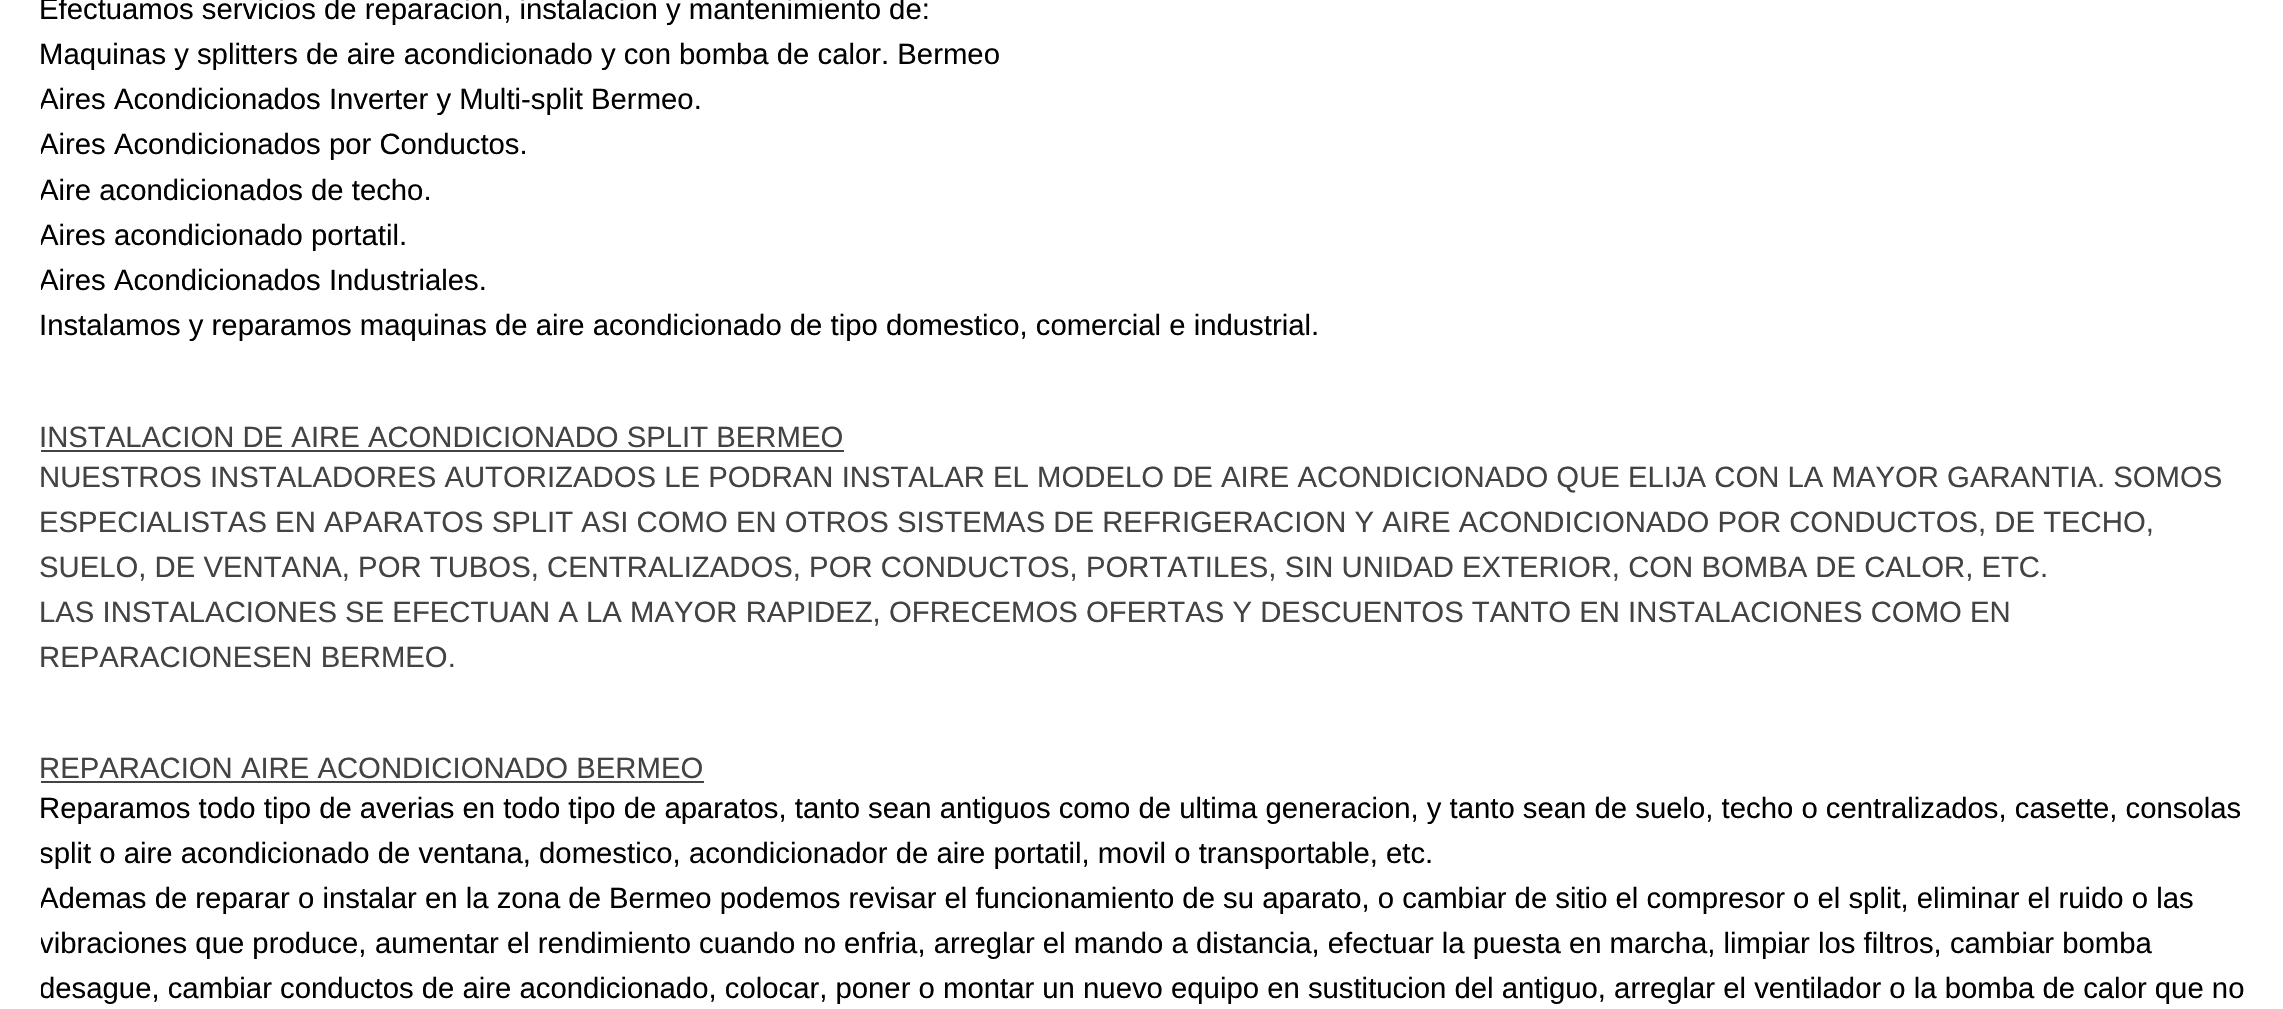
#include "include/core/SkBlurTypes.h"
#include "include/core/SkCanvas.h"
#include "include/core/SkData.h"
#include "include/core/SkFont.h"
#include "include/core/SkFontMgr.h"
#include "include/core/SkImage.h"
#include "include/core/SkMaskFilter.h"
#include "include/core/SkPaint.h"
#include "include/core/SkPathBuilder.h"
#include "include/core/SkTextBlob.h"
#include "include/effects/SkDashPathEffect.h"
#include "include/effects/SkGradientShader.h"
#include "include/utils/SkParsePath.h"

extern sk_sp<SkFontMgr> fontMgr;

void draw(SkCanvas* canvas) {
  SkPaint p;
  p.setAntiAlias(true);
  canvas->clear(SK_ColorWHITE);
  p.setColor(SkColorSetRGB(67, 67, 67));
  canvas->drawRect(SkRect::MakeLTRB(41, 450, 844, 452), p);
  canvas->drawRect(SkRect::MakeLTRB(41, 781, 704, 783), p);
  SkFont font1(fontMgr->matchFamilyStyle("Liberation Sans", SkFontStyle::Normal()), 29.3f);
  font1.setSubpixel(true);
  p.setColor(SK_ColorBLACK);
  canvas->drawString("Efectuamos servicios de reparacion, instalacion y mantenimiento de:", 39, 19, font1, p);
  canvas->drawString("Maquinas y splitters de aire acondicionado y con bomba de calor. Bermeo", 39, 64, font1, p);
  canvas->save();
  canvas->clipRect(SkRect::MakeLTRB(41, 0, 2246, 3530));
  canvas->drawString("Aires Acondicionados Inverter y Multi-split Bermeo.", 39, 109, font1, p);
  canvas->drawString("Aires Acondicionados por Conductos.", 39, 154, font1, p);
  canvas->drawString("Aire acondicionados de techo.", 39, 200, font1, p);
  canvas->drawString("Aires acondicionado portatil.", 39, 245, font1, p);
  canvas->drawString("Aires Acondicionados Industriales.", 39, 290, font1, p);
  canvas->restore();
  canvas->drawString("Instalamos y reparamos maquinas de aire acondicionado de tipo domestico, comercial e industrial.", 39, 335, font1, p);
  p.setColor(SkColorSetRGB(67, 67, 67));
  canvas->drawString("INSTALACION DE AIRE ACONDICIONADO SPLIT BERMEO", 39, 447, font1, p);
  canvas->drawString("NUESTROS INSTALADORES AUTORIZADOS LE PODRAN INSTALAR EL MODELO DE AIRE ACONDICIONADO QUE ELIJA CON LA MAYOR GARANTIA. SOMOS", 39, 487, font1, p);
  canvas->drawString("ESPECIALISTAS EN APARATOS SPLIT ASI COMO EN OTROS SISTEMAS DE REFRIGERACION Y AIRE ACONDICIONADO POR CONDUCTOS, DE TECHO,", 39, 532, font1, p);
  canvas->drawString("SUELO, DE VENTANA, POR TUBOS, CENTRALIZADOS, POR CONDUCTOS,", 39, 577, font1, p);
  canvas->drawString("PORTATILES, SIN UNIDAD EXTERIOR, CON BOMBA DE CALOR, ETC.", 1086, 577, font1, p);
  canvas->drawString("LAS INSTALACIONES SE EFECTUAN A LA MAYOR RAPIDEZ,", 39, 622, font1, p);
  canvas->drawString("OFRECEMOS OFERTAS Y DESCUENTOS TANTO EN INSTALACIONES COMO EN", 889, 622, font1, p);
  canvas->drawString("REPARACIONESEN BERMEO.", 39, 667, font1, p);
  canvas->drawString("REPARACION AIRE ACONDICIONADO BERMEO", 39, 778, font1, p);
  p.setColor(SK_ColorBLACK);
  canvas->drawString("Reparamos todo tipo de averias en todo tipo de aparatos, tanto sean antiguos como de ultima generacion, y tanto sean de suelo, techo o centralizados, casette, consolas", 39, 818, font1, p);
  canvas->save();
  canvas->clipRect(SkRect::MakeLTRB(41, 0, 2246, 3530));
  canvas->drawString("split o aire acondicionado de ventana, domestico, acondicionador de aire portatil, movil o transportable, etc.", 39, 863, font1, p);
  canvas->drawString("Ademas de reparar o instalar en la zona de Bermeo podemos revisar el funcionamiento de su aparato, o cambiar de sitio el compresor o el split, eliminar el ruido o las", 39, 908, font1, p);
  canvas->drawString("vibraciones que produce,", 39, 953, font1, p);
  canvas->restore();
  canvas->drawString("aumentar el rendimiento cuando no enfria, arreglar el mando a distancia, efectuar la puesta en marcha, limpiar los filtros, cambiar bomba", 375, 953, font1, p);
  canvas->save();
  canvas->clipRect(SkRect::MakeLTRB(41, 0, 2246, 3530));
  canvas->drawString("desague, cambiar conductos de aire acondicionado, colocar, poner o montar un nuevo equipo en sustitucion del antiguo, arreglar el ventilador o la bomba de calor que no", 39, 998, font1, p);
  canvas->restore();
}
